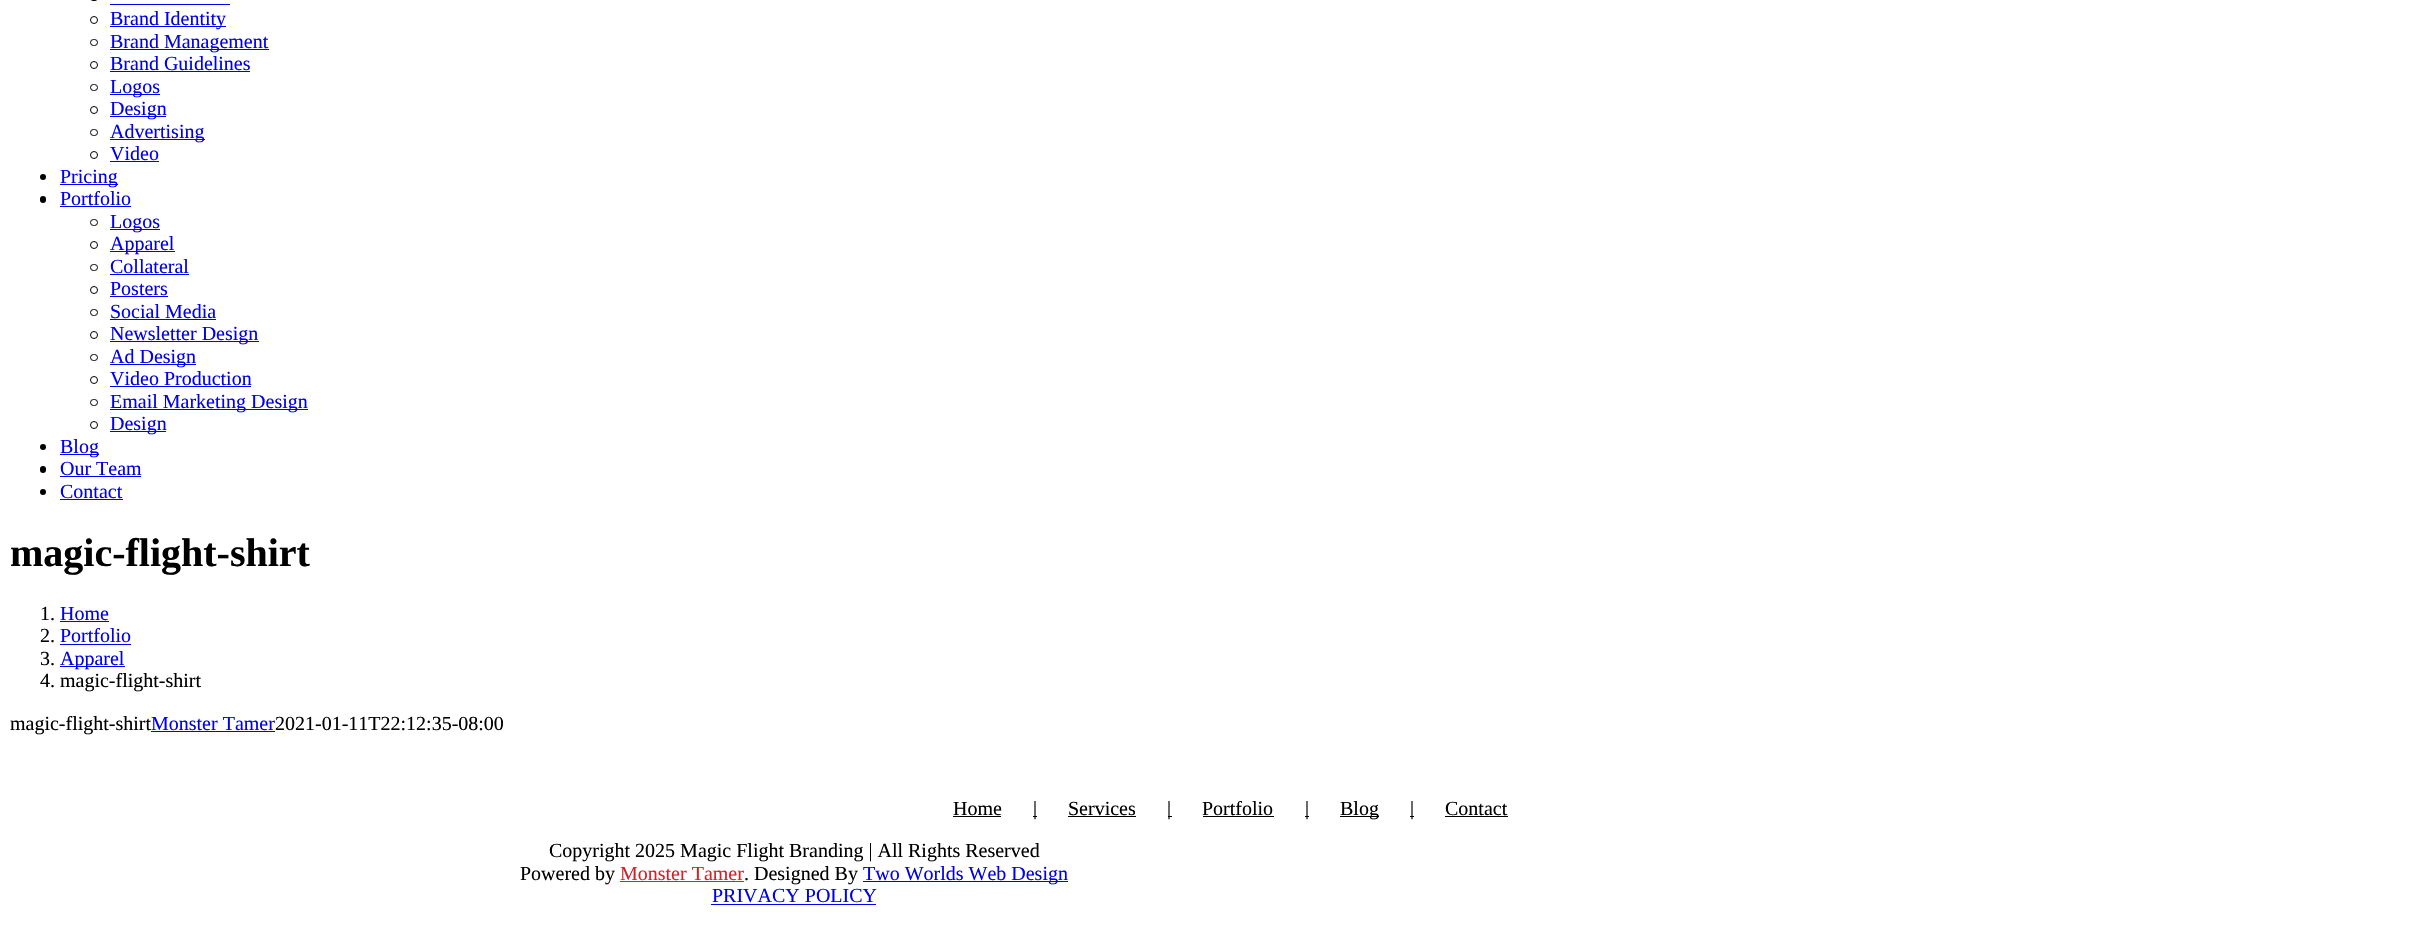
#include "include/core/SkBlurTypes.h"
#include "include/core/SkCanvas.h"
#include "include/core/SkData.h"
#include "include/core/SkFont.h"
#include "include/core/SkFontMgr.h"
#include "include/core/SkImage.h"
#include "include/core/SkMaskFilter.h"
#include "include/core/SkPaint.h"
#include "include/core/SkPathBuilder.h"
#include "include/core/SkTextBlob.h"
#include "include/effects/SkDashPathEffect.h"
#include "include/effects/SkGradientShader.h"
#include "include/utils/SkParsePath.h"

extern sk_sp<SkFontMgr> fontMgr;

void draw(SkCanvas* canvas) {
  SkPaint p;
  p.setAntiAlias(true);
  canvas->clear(SK_ColorWHITE);
  p.setStyle(SkPaint::kStroke_Style);
  p.setStrokeWidth(1);
  p.setColor(SK_ColorBLACK);
  canvas->drawRoundRect(SkRect::MakeLTRB(90.5f, -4.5f, 97.5f, 0.5f), 3, 3, p);
  p.setStyle(SkPaint::kFill_Style);
  p.setColor(SkColorSetRGB(0, 0, 238));
  canvas->drawRect(SkRect::MakeLTRB(110, 4, 230, 5), p);
  p.setStyle(SkPaint::kStroke_Style);
  p.setColor(SK_ColorBLACK);
  canvas->drawCircle(94, 20, 3.5f, p);
  p.setStyle(SkPaint::kFill_Style);
  p.setColor(SkColorSetRGB(0, 0, 238));
  canvas->drawRect(SkRect::MakeLTRB(110, 26, 226, 27), p);
  p.setStyle(SkPaint::kStroke_Style);
  p.setColor(SK_ColorBLACK);
  canvas->drawRoundRect(SkRect::MakeLTRB(90.5f, 39.5f, 97.5f, 45.5f), 3, 3, p);
  p.setStyle(SkPaint::kFill_Style);
  p.setColor(SkColorSetRGB(0, 0, 238));
  canvas->drawRect(SkRect::MakeLTRB(110, 49, 269, 50), p);
  p.setStyle(SkPaint::kStroke_Style);
  p.setColor(SK_ColorBLACK);
  canvas->drawCircle(94, 65, 3.5f, p);
  p.setStyle(SkPaint::kFill_Style);
  p.setColor(SkColorSetRGB(0, 0, 238));
  canvas->drawRect(SkRect::MakeLTRB(110, 71, 250, 72), p);
  p.setStyle(SkPaint::kStroke_Style);
  p.setColor(SK_ColorBLACK);
  canvas->drawRoundRect(SkRect::MakeLTRB(90.5f, 84.5f, 97.5f, 90.5f), 3, 3, p);
  p.setStyle(SkPaint::kFill_Style);
  p.setColor(SkColorSetRGB(0, 0, 238));
  canvas->drawRect(SkRect::MakeLTRB(110, 94, 160, 95), p);
  p.setStyle(SkPaint::kStroke_Style);
  p.setColor(SK_ColorBLACK);
  canvas->drawCircle(94, 110, 3.5f, p);
  p.setStyle(SkPaint::kFill_Style);
  p.setColor(SkColorSetRGB(0, 0, 238));
  canvas->drawRect(SkRect::MakeLTRB(110, 116, 166, 117), p);
  p.setStyle(SkPaint::kStroke_Style);
  p.setColor(SK_ColorBLACK);
  canvas->drawRoundRect(SkRect::MakeLTRB(90.5f, 129.5f, 97.5f, 135.5f), 3, 3, p);
  p.setStyle(SkPaint::kFill_Style);
  p.setColor(SkColorSetRGB(0, 0, 238));
  canvas->drawRect(SkRect::MakeLTRB(110, 139, 205, 140), p);
  p.setStyle(SkPaint::kStroke_Style);
  p.setColor(SK_ColorBLACK);
  canvas->drawCircle(94, 155, 3.5f, p);
  p.setStyle(SkPaint::kFill_Style);
  p.setColor(SkColorSetRGB(0, 0, 238));
  canvas->drawRect(SkRect::MakeLTRB(110, 161, 159, 162), p);
  p.setColor(SK_ColorBLACK);
  canvas->drawCircle(43, 177, 3, p);
  p.setColor(SkColorSetRGB(0, 0, 238));
  canvas->drawRect(SkRect::MakeLTRB(60, 184, 118, 185), p);
  p.setColor(SK_ColorBLACK);
  canvas->drawRoundRect(SkRect::MakeLTRB(40, 196, 46, 203), 3, 3, p);
  p.setColor(SkColorSetRGB(0, 0, 238));
  canvas->drawRect(SkRect::MakeLTRB(60, 206, 131, 207), p);
  p.setStyle(SkPaint::kStroke_Style);
  p.setColor(SK_ColorBLACK);
  canvas->drawRoundRect(SkRect::MakeLTRB(90.5f, 219.5f, 97.5f, 225.5f), 3, 3, p);
  p.setStyle(SkPaint::kFill_Style);
  p.setColor(SkColorSetRGB(0, 0, 238));
  canvas->drawRect(SkRect::MakeLTRB(110, 229, 160, 230), p);
  p.setStyle(SkPaint::kStroke_Style);
  p.setColor(SK_ColorBLACK);
  canvas->drawCircle(94, 245, 3.5f, p);
  p.setStyle(SkPaint::kFill_Style);
  p.setColor(SkColorSetRGB(0, 0, 238));
  canvas->drawRect(SkRect::MakeLTRB(110, 251, 175, 252), p);
  p.setStyle(SkPaint::kStroke_Style);
  p.setColor(SK_ColorBLACK);
  canvas->drawRoundRect(SkRect::MakeLTRB(90.5f, 264.5f, 97.5f, 270.5f), 3, 3, p);
  p.setStyle(SkPaint::kFill_Style);
  p.setColor(SkColorSetRGB(0, 0, 238));
  canvas->drawRect(SkRect::MakeLTRB(110, 274, 189, 275), p);
  p.setStyle(SkPaint::kStroke_Style);
  p.setColor(SK_ColorBLACK);
  canvas->drawCircle(94, 290, 3.5f, p);
  p.setStyle(SkPaint::kFill_Style);
  p.setColor(SkColorSetRGB(0, 0, 238));
  canvas->drawRect(SkRect::MakeLTRB(110, 296, 168, 297), p);
  p.setStyle(SkPaint::kStroke_Style);
  p.setColor(SK_ColorBLACK);
  canvas->drawRoundRect(SkRect::MakeLTRB(90.5f, 309.5f, 97.5f, 315.5f), 3, 3, p);
  p.setStyle(SkPaint::kFill_Style);
  p.setColor(SkColorSetRGB(0, 0, 238));
  canvas->drawRect(SkRect::MakeLTRB(110, 319, 216, 320), p);
  p.setStyle(SkPaint::kStroke_Style);
  p.setColor(SK_ColorBLACK);
  canvas->drawCircle(94, 335, 3.5f, p);
  p.setStyle(SkPaint::kFill_Style);
  p.setColor(SkColorSetRGB(0, 0, 238));
  canvas->drawRect(SkRect::MakeLTRB(110, 341, 259, 342), p);
  p.setStyle(SkPaint::kStroke_Style);
  p.setColor(SK_ColorBLACK);
  canvas->drawRoundRect(SkRect::MakeLTRB(90.5f, 354.5f, 97.5f, 360.5f), 3, 3, p);
  p.setStyle(SkPaint::kFill_Style);
  p.setColor(SkColorSetRGB(0, 0, 238));
  canvas->drawRect(SkRect::MakeLTRB(110, 364, 196, 365), p);
  p.setStyle(SkPaint::kStroke_Style);
  p.setColor(SK_ColorBLACK);
  canvas->drawCircle(94, 380, 3.5f, p);
  p.setStyle(SkPaint::kFill_Style);
  p.setColor(SkColorSetRGB(0, 0, 238));
  canvas->drawRect(SkRect::MakeLTRB(110, 386, 251, 387), p);
  p.setStyle(SkPaint::kStroke_Style);
  p.setColor(SK_ColorBLACK);
  canvas->drawRoundRect(SkRect::MakeLTRB(90.5f, 399.5f, 97.5f, 405.5f), 3, 3, p);
  p.setStyle(SkPaint::kFill_Style);
  p.setColor(SkColorSetRGB(0, 0, 238));
  canvas->drawRect(SkRect::MakeLTRB(110, 409, 308, 410), p);
  p.setStyle(SkPaint::kStroke_Style);
  p.setColor(SK_ColorBLACK);
  canvas->drawCircle(94, 425, 3.5f, p);
  p.setStyle(SkPaint::kFill_Style);
  p.setColor(SkColorSetRGB(0, 0, 238));
  canvas->drawRect(SkRect::MakeLTRB(110, 431, 166, 432), p);
  p.setColor(SK_ColorBLACK);
  canvas->drawCircle(43, 447, 3, p);
  p.setColor(SkColorSetRGB(0, 0, 238));
  canvas->drawRect(SkRect::MakeLTRB(60, 454, 99, 455), p);
  p.setColor(SK_ColorBLACK);
  canvas->drawRoundRect(SkRect::MakeLTRB(40, 466, 46, 473), 3, 3, p);
  p.setColor(SkColorSetRGB(0, 0, 238));
  canvas->drawRect(SkRect::MakeLTRB(60, 476, 141, 477), p);
  p.setColor(SK_ColorBLACK);
  canvas->drawCircle(43, 492, 3, p);
  p.setColor(SkColorSetRGB(0, 0, 238));
  canvas->drawRect(SkRect::MakeLTRB(60, 499, 123, 500), p);
  canvas->drawRect(SkRect::MakeLTRB(60, 621, 109, 622), p);
  canvas->drawRect(SkRect::MakeLTRB(60, 644, 131, 645), p);
  canvas->drawRect(SkRect::MakeLTRB(60, 666, 125, 667), p);
  canvas->drawRect(SkRect::MakeLTRB(151, 731, 275, 732), p);
  p.setColor(SK_ColorBLACK);
  canvas->drawRect(SkRect::MakeLTRB(953, 816, 1001, 817), p);
  canvas->drawRect(SkRect::MakeLTRB(1033, 816, 1037, 817), p);
  canvas->drawRect(SkRect::MakeLTRB(1068, 816, 1136, 817), p);
  canvas->drawRect(SkRect::MakeLTRB(1168, 816, 1172, 817), p);
  canvas->drawRect(SkRect::MakeLTRB(1203, 816, 1274, 817), p);
  canvas->drawRect(SkRect::MakeLTRB(1305, 816, 1309, 817), p);
  canvas->drawRect(SkRect::MakeLTRB(1340, 816, 1379, 817), p);
  canvas->drawRect(SkRect::MakeLTRB(1410, 816, 1414, 817), p);
  canvas->drawRect(SkRect::MakeLTRB(1445, 816, 1508, 817), p);
  p.setColor(SkColorSetRGB(209, 34, 41));
  canvas->drawRect(SkRect::MakeLTRB(620, 881, 744, 882), p);
  p.setColor(SkColorSetRGB(0, 0, 238));
  canvas->drawRect(SkRect::MakeLTRB(863, 881, 1068, 882), p);
  canvas->drawRect(SkRect::MakeLTRB(711, 904, 876, 905), p);
  SkFont font1(fontMgr->matchFamilyStyle("Liberation Serif", SkFontStyle::Normal()), 20);
  font1.setSubpixel(true);
  canvas->drawString("Brand Identity", 110, 25, font1, p);
  canvas->drawString("Brand Management", 110, 48, font1, p);
  canvas->drawString("Brand Guidelines", 110, 70, font1, p);
  canvas->drawString("Logos", 110, 93, font1, p);
  canvas->drawString("Design", 110, 115, font1, p);
  canvas->drawString("Advertising", 110, 138, font1, p);
  canvas->drawString("Video", 110, 160, font1, p);
  canvas->drawString("Pricing", 60, 183, font1, p);
  canvas->drawString("Portfolio", 60, 205, font1, p);
  canvas->drawString("Logos", 110, 228, font1, p);
  canvas->drawString("Apparel", 110, 250, font1, p);
  canvas->drawString("Collateral", 110, 273, font1, p);
  canvas->drawString("Posters", 110, 295, font1, p);
  canvas->drawString("Social Media", 110, 318, font1, p);
  canvas->drawString("Newsletter Design", 110, 340, font1, p);
  canvas->drawString("Ad Design", 110, 363, font1, p);
  canvas->drawString("Video Production", 110, 385, font1, p);
  canvas->drawString("Email Marketing Design", 110, 408, font1, p);
  canvas->drawString("Design", 110, 430, font1, p);
  canvas->drawString("Blog", 60, 453, font1, p);
  canvas->drawString("Our Team", 60, 475, font1, p);
  canvas->drawString("Contact", 60, 498, font1, p);
  SkFont font2(fontMgr->matchFamilyStyle("Liberation Serif", SkFontStyle::Bold()), 40);
  font2.setSubpixel(true);
  p.setColor(SK_ColorBLACK);
  canvas->drawString("magic-flight-shirt", 10, 566, font2, p);
  canvas->drawString("1.", 40, 620, font1, p);
  p.setColor(SkColorSetRGB(0, 0, 238));
  canvas->drawString("Home", 60, 620, font1, p);
  p.setColor(SK_ColorBLACK);
  canvas->drawString("2.", 40, 642, font1, p);
  p.setColor(SkColorSetRGB(0, 0, 238));
  canvas->drawString("Portfolio", 60, 642, font1, p);
  p.setColor(SK_ColorBLACK);
  canvas->drawString("3.", 40, 665, font1, p);
  p.setColor(SkColorSetRGB(0, 0, 238));
  canvas->drawString("Apparel", 60, 665, font1, p);
  p.setColor(SK_ColorBLACK);
  canvas->drawString("4. magic-flight-shirt", 40, 687, font1, p);
  canvas->drawString("magic-flight-shirt", 10, 730, font1, p);
  p.setColor(SkColorSetRGB(0, 0, 238));
  canvas->drawString("Monster Tamer", 151, 730, font1, p);
  p.setColor(SK_ColorBLACK);
  canvas->drawString("2021-01-11T22:12:35-08:00", 275, 730, font1, p);
  canvas->drawString("Home", 953, 815, font1, p);
  canvas->drawString("|", 1033, 815, font1, p);
  canvas->drawString("Services", 1068, 815, font1, p);
  canvas->drawString("|", 1167, 815, font1, p);
  canvas->drawString("Portfolio", 1202, 815, font1, p);
  canvas->drawString("|", 1305, 815, font1, p);
  canvas->drawString("Blog", 1340, 815, font1, p);
  canvas->drawString("|", 1410, 815, font1, p);
  canvas->drawString("Contact", 1445, 815, font1, p);
  canvas->drawString("Copyright 2025 Magic Flight Branding | All Rights Reserved", 549, 857, font1, p);
  canvas->drawString("Powered by", 520, 880, font1, p);
  p.setColor(SkColorSetRGB(209, 34, 41));
  canvas->drawString("Monster Tamer", 620, 880, font1, p);
  p.setColor(SK_ColorBLACK);
  canvas->drawString(". Designed By", 744, 880, font1, p);
  p.setColor(SkColorSetRGB(0, 0, 238));
  canvas->drawString("Two Worlds Web Design", 863, 880, font1, p);
  canvas->drawString("PRIVACY POLICY", 712, 902, font1, p);
}
